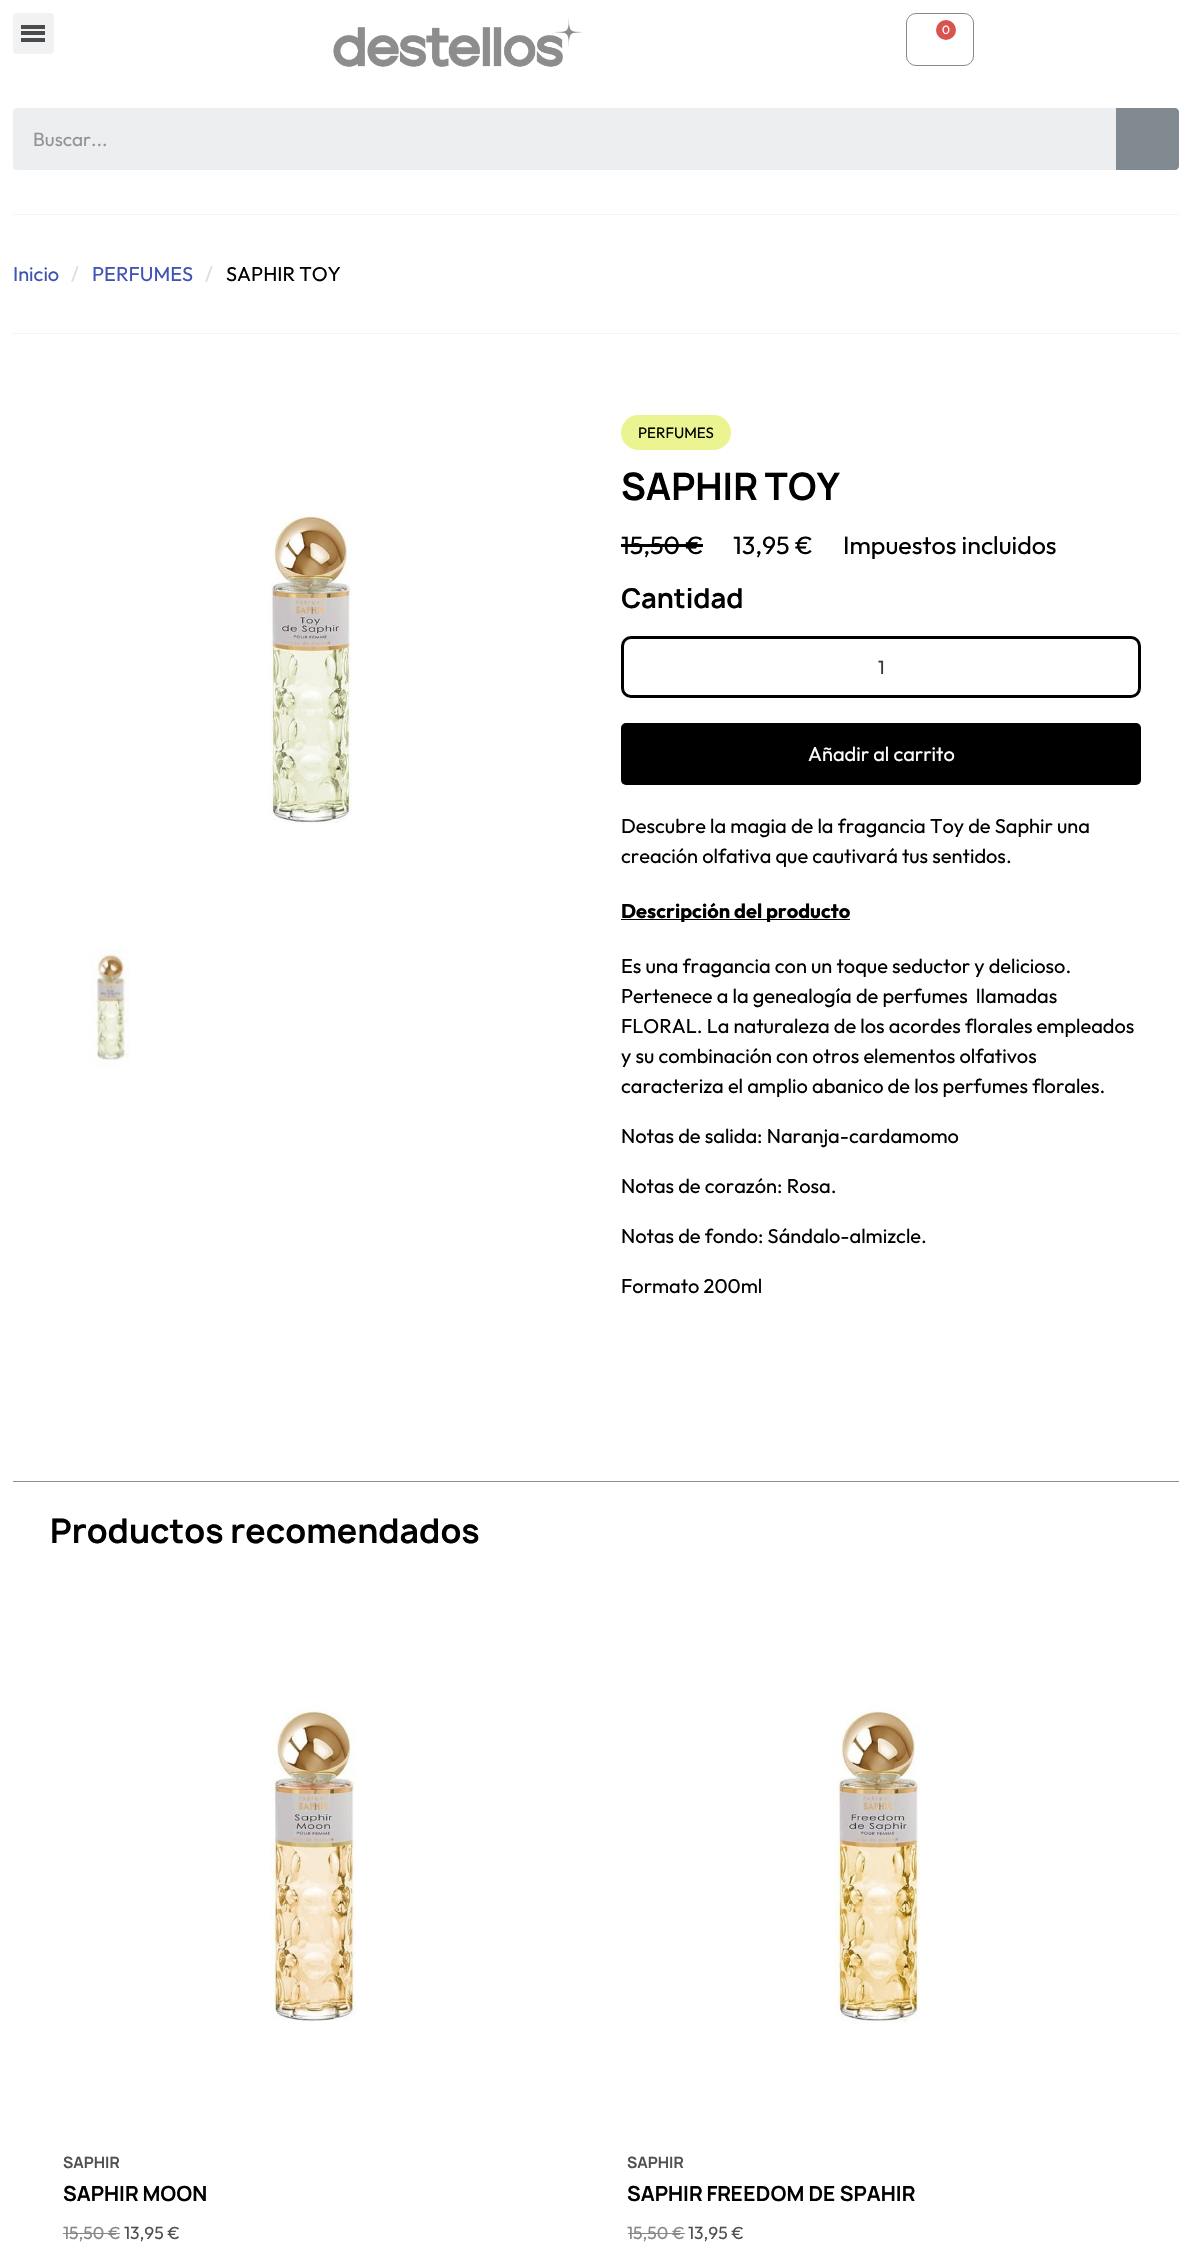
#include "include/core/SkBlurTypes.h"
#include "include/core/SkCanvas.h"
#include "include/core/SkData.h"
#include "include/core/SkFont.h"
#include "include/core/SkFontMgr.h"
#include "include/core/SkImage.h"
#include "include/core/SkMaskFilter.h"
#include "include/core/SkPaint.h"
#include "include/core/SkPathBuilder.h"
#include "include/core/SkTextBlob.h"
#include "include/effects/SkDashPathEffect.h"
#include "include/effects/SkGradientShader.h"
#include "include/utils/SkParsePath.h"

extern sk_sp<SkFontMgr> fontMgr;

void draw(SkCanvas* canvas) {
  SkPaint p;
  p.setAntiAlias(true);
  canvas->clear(SK_ColorWHITE);
  p.setColor(SkColorSetRGB(242, 242, 242));
  canvas->drawRoundRect(SkRect::MakeLTRB(13, 13, 54, 54), 4, 4, p);
  p.setColor(SkColorSetRGB(73, 76, 79));
  canvas->drawRect(SkRect::MakeLTRB(21, 31, 45, 35), p);
  canvas->drawRect(SkRect::MakeLTRB(21, 25, 45, 29), p);
  canvas->drawRect(SkRect::MakeLTRB(21, 38, 45, 42), p);
  canvas->drawImageRect(SkImages::DeferredFromEncodedData(SkData::MakeFromFileName("images/1.png")), SkRect::MakeLTRB(333, 18, 582, 67), SkSamplingOptions());
  p.setStyle(SkPaint::kStroke_Style);
  p.setStrokeWidth(1);
  p.setColor(SkColorSetRGB(129, 138, 145));
  canvas->drawRoundRect(SkRect::MakeLTRB(906.5f, 13.5f, 973.5f, 65.5f), 9.5f, 9.5f, p);
  p.setStyle(SkPaint::kFill_Style);
  p.setColor(SkColorSetRGB(217, 83, 79));
  canvas->drawCircle(946, 30, 10, p);
  p.setColor(SkColorSetRGB(236, 238, 239));
  canvas->drawRoundRect(SkRect::MakeLTRB(13, 108, 1179, 170), 4, 4, p);
  p.setColor(SkColorSetRGB(129, 138, 145));
  canvas->drawPath(SkPathBuilder().moveTo(1116, 108).lineTo(1175, 108).cubicTo(1177, 108, 1179, 110, 1179, 112).lineTo(1179, 166).cubicTo(1179, 168, 1177, 170, 1175, 170).lineTo(1116, 170).close().detach(), p);
  p.setColor(SkColorSetRGB(244, 244, 244));
  canvas->drawRect(SkRect::MakeLTRB(13, 214, 1179, 215), p);
  canvas->drawRect(SkRect::MakeLTRB(13, 333, 1179, 334), p);
  canvas->drawImageRect(SkImages::DeferredFromEncodedData(SkData::MakeFromFileName("images/2.png")), SkRect::MakeLTRB(269, 509, 353, 824), SkSamplingOptions());
  canvas->drawImageRect(SkImages::DeferredFromEncodedData(SkData::MakeFromFileName("images/3.png")), SkRect::MakeLTRB(89, 949, 130, 1067), SkSamplingOptions());
  p.setColor(SkColorSetRGB(235, 244, 144));
  canvas->drawRoundRect(SkRect::MakeLTRB(621, 415, 731, 450), 17.5f, 17.5f, p);
  p.setColor(SK_ColorBLACK);
  canvas->drawRect(SkRect::MakeLTRB(621, 544, 703, 547), p);
  p.setStyle(SkPaint::kStroke_Style);
  p.setStrokeWidth(3);
  canvas->drawRoundRect(SkRect::MakeLTRB(622.5f, 637.5f, 1139.5f, 696.5f), 8.5f, 8.5f, p);
  p.setStyle(SkPaint::kFill_Style);
  canvas->drawRoundRect(SkRect::MakeLTRB(621, 723, 1141, 785), 5, 5, p);
  canvas->drawRect(SkRect::MakeLTRB(621, 919, 850, 920), p);
  p.setColor(SkColorSetRGB(141, 141, 141));
  canvas->drawRect(SkRect::MakeLTRB(13, 1481, 1179, 1482), p);
  canvas->drawImageRect(SkImages::DeferredFromEncodedData(SkData::MakeFromFileName("images/4.png")), SkRect::MakeLTRB(270, 1704, 356, 2021), SkSamplingOptions());
  p.setColor(SkColorSetRGB(136, 136, 136));
  canvas->drawRect(SkRect::MakeLTRB(63, 2233, 120, 2234), p);
  canvas->drawImageRect(SkImages::DeferredFromEncodedData(SkData::MakeFromFileName("images/5.png")), SkRect::MakeLTRB(834, 1704, 920, 2024), SkSamplingOptions());
  canvas->drawRect(SkRect::MakeLTRB(628, 2233, 685, 2234), p);
  SkFont font1(fontMgr->matchFamilyStyle("Outfit", SkFontStyle::Normal()), 12);
  font1.setSubpixel(true);
  p.setColor(SK_ColorWHITE);
  canvas->drawString("0", 942, 34, font1, p);
  SkFont font2(fontMgr->matchFamilyStyle("Outfit", SkFontStyle::Normal()), 19);
  font2.setSubpixel(true);
  p.setColor(SkColorSetRGB(145, 149, 151));
  canvas->drawString("Buscar...", 33, 146, font2, p);
  SkFont font3(fontMgr->matchFamilyStyle("Outfit", SkFontStyle::Normal()), 20);
  font3.setSubpixel(true);
  p.setColor(SkColorSetRGB(64, 84, 178));
  canvas->drawString("Inicio", 13, 281, font3, p);
  p.setColor(SkColorSetRGB(221, 221, 221));
  canvas->drawString("/", 71, 281, font3, p);
  p.setColor(SkColorSetRGB(64, 84, 178));
  canvas->drawString("PERFUMES", 92, 281, font3, p);
  p.setColor(SkColorSetRGB(221, 221, 221));
  canvas->drawString("/", 205, 281, font3, p);
  p.setColor(SK_ColorBLACK);
  canvas->drawString("SAPHIR TOY", 226, 281, font3, p);
  SkFont font4(fontMgr->matchFamilyStyle("Outfit", SkFontStyle::Normal()), 15);
  font4.setSubpixel(true);
  canvas->drawString("PERFUMES", 638, 438, font4, p);
  SkFont font5(fontMgr->matchFamilyStyle("Manrope", SkFontStyle::Bold()), 36.25f);
  font5.setSubpixel(true);
  canvas->drawString("SAPHIR TOY", 621, 500, font5, p);
  SkFont font6(fontMgr->matchFamilyStyle("Outfit", SkFontStyle::Normal()), 25);
  font6.setSubpixel(true);
  canvas->drawString("15,50 €", 621, 554, font6, p);
  canvas->drawString("13,95 €", 733, 554, font6, p);
  canvas->drawString("Impuestos incluidos", 843, 554, font6, p);
  SkFont font7(fontMgr->matchFamilyStyle("Manrope", SkFontStyle::Bold()), 26.25f);
  font7.setSubpixel(true);
  canvas->drawString("Cantidad", 621, 608, font7, p);
  p.setColor(SkColorSetRGB(55, 58, 60));
  canvas->drawString("1", 878, 674, font2, p);
  p.setColor(SK_ColorWHITE);
  canvas->drawString("Añadir al carrito", 808, 761, font3, p);
  p.setColor(SK_ColorBLACK);
  canvas->drawString("Descubre la magia de la fragancia Toy de Saphir una", 621, 833, font3, p);
  canvas->drawString("creación olfativa que cautivará tus sentidos.", 621, 863, font3, p);
  SkFont font8(fontMgr->matchFamilyStyle("Outfit", SkFontStyle::Bold()), 20);
  font8.setSubpixel(true);
  canvas->drawString("Descripción del producto", 621, 918, font8, p);
  canvas->drawString("Es una fragancia con un toque seductor y delicioso.", 621, 973, font3, p);
  canvas->drawString("Pertenece a la genealogía de perfumes  llamadas", 621, 1003, font3, p);
  canvas->drawString("FLORAL. La naturaleza de los acordes florales empleados", 621, 1033, font3, p);
  canvas->drawString("y su combinación con otros elementos olfativos", 621, 1063, font3, p);
  canvas->drawString("caracteriza el amplio abanico de los perfumes florales.", 621, 1093, font3, p);
  canvas->drawString("Notas de salida: Naranja-cardamomo", 621, 1143, font3, p);
  canvas->drawString("Notas de corazón: Rosa.", 621, 1193, font3, p);
  canvas->drawString("Notas de fondo: Sándalo-almizcle.", 621, 1243, font3, p);
  canvas->drawString("Formato 200ml", 621, 1293, font3, p);
  SkFont font9(fontMgr->matchFamilyStyle("Manrope", SkFontStyle::Bold()), 32.5f);
  font9.setSubpixel(true);
  canvas->drawString("Productos recomendados", 50, 1543, font9, p);
  SkFont font10(fontMgr->matchFamilyStyle("Manrope", SkFontStyle::Bold()), 15);
  font10.setSubpixel(true);
  p.setColor(SkColorSetRGB(80, 80, 80));
  canvas->drawString("SAPHIR", 63, 2168, font10, p);
  SkFont font11(fontMgr->matchFamilyStyle("Manrope", SkFontStyle::Bold()), 20);
  font11.setSubpixel(true);
  p.setColor(SK_ColorBLACK);
  canvas->drawString("SAPHIR MOON", 63, 2201, font11, p);
  SkFont font12(fontMgr->matchFamilyStyle("Outfit", SkFontStyle::Normal()), 17.5f);
  font12.setSubpixel(true);
  p.setColor(SkColorSetRGB(136, 136, 136));
  canvas->drawString("15,50 €", 63, 2239, font12, p);
  p.setColor(SkColorSetRGB(80, 80, 80));
  canvas->drawString("13,95 €", 124, 2239, font12, p);
  canvas->drawString("SAPHIR", 627, 2168, font10, p);
  p.setColor(SK_ColorBLACK);
  canvas->drawString("SAPHIR FREEDOM DE SPAHIR", 627, 2201, font11, p);
  p.setColor(SkColorSetRGB(136, 136, 136));
  canvas->drawString("15,50 €", 627, 2239, font12, p);
  p.setColor(SkColorSetRGB(80, 80, 80));
  canvas->drawString("13,95 €", 688, 2239, font12, p);
}
